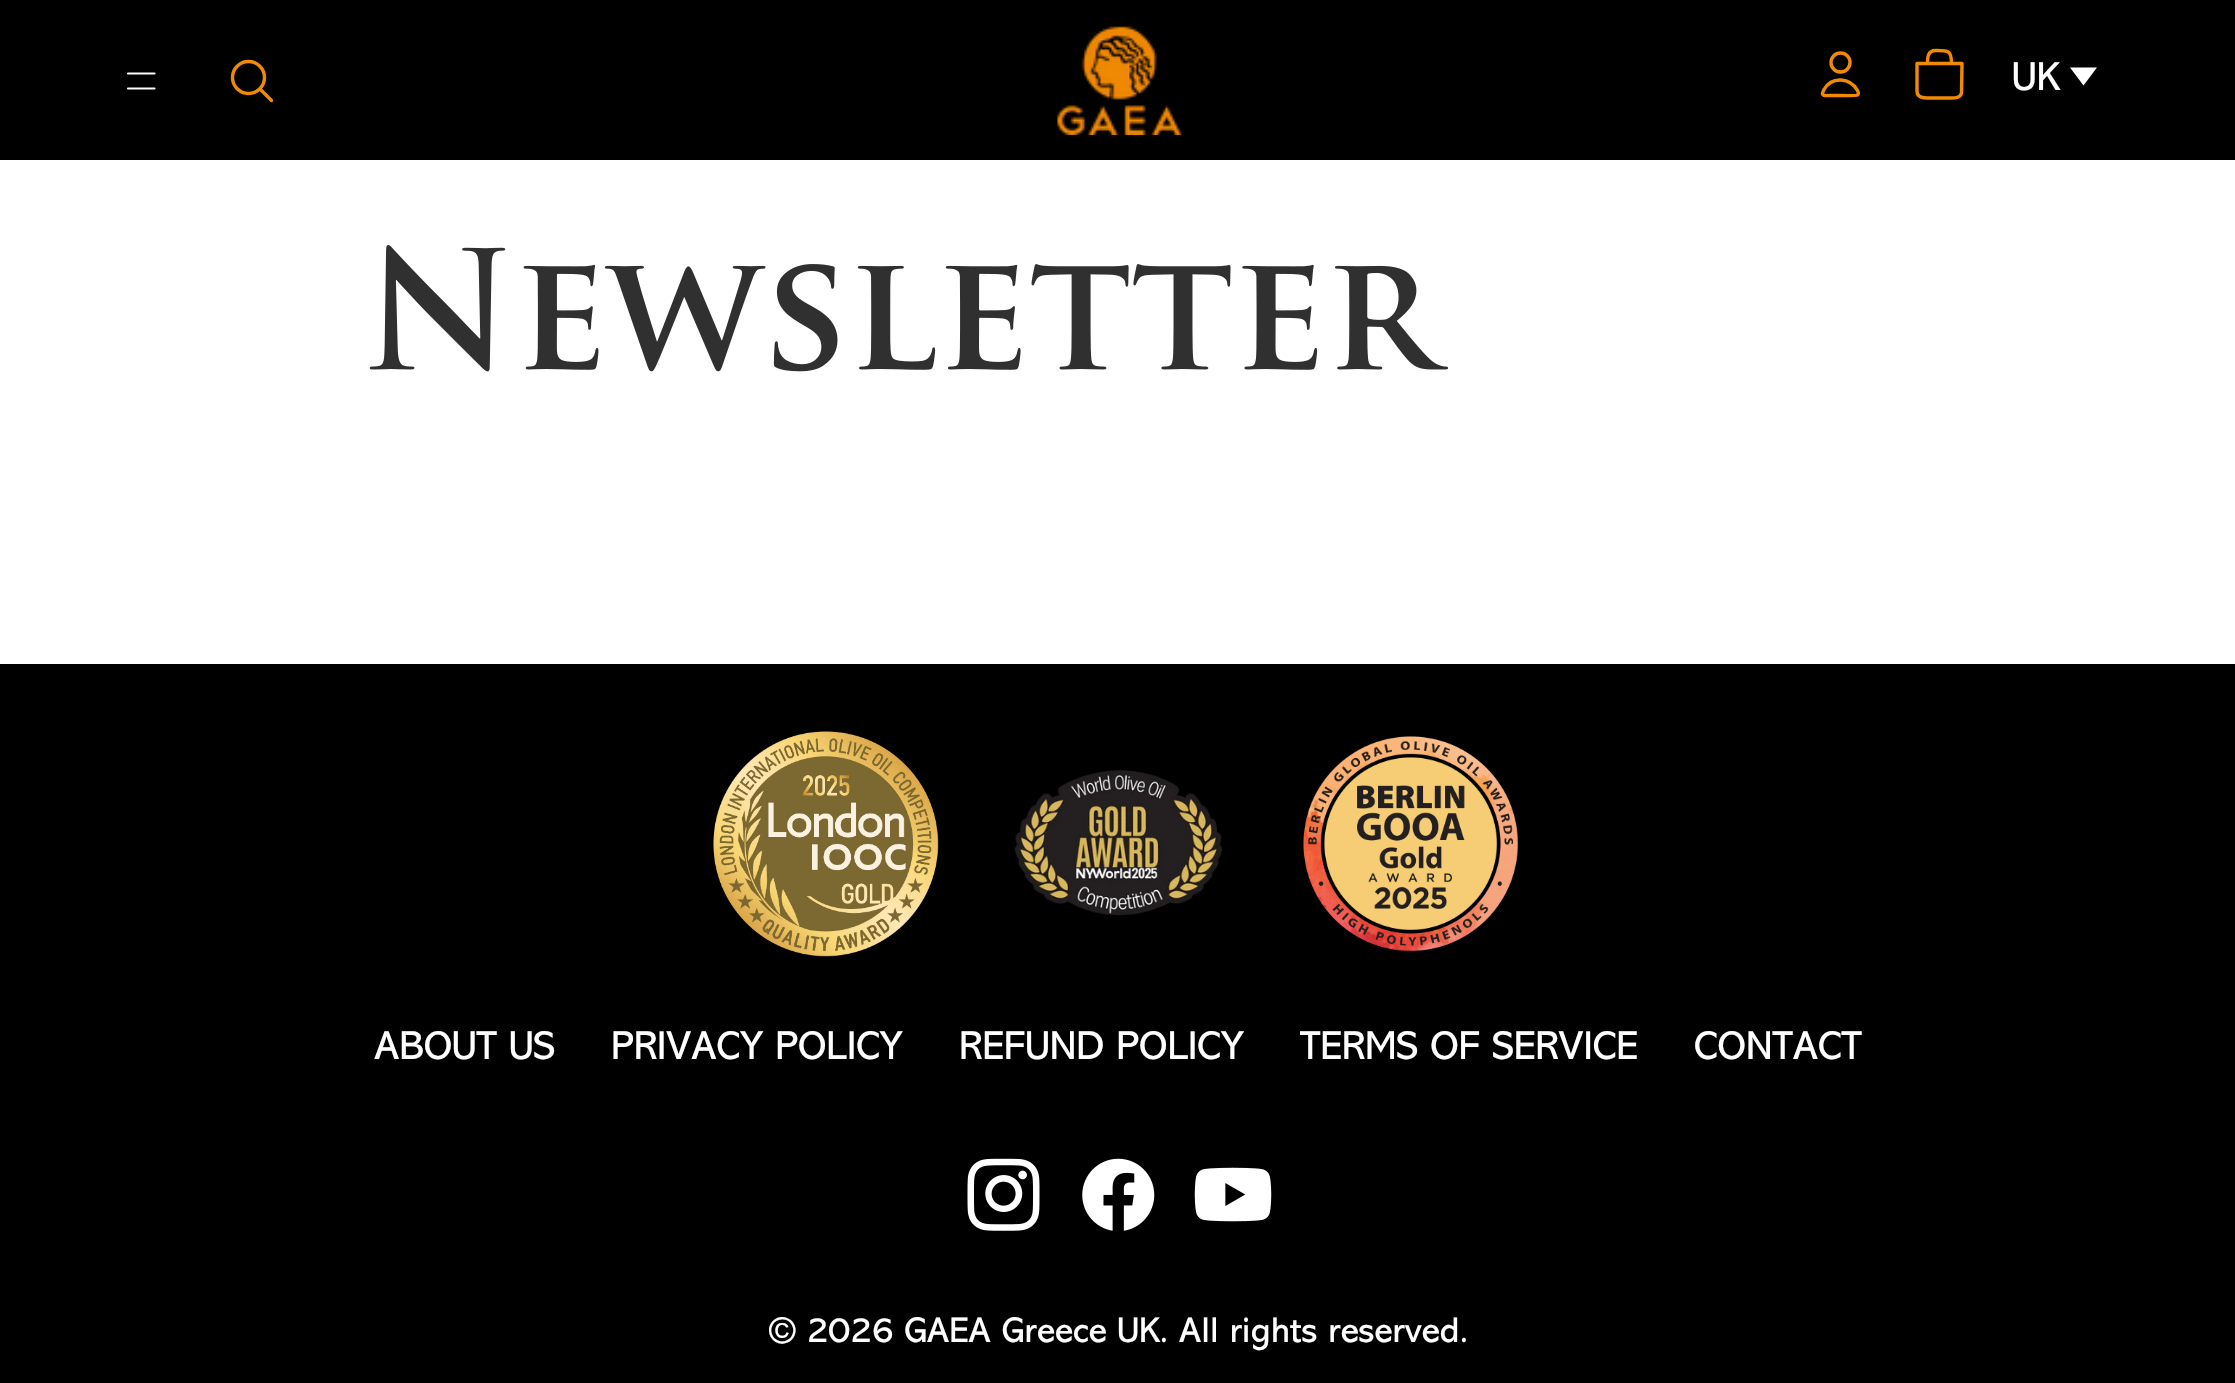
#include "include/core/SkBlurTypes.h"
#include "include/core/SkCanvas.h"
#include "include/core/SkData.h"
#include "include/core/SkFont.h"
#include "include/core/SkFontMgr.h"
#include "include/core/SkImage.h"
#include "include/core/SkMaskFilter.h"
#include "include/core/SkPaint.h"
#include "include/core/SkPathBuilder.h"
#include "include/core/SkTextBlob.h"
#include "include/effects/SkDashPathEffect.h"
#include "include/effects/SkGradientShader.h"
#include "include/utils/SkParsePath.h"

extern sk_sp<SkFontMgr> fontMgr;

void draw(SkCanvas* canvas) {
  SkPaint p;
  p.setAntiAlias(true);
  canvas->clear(SK_ColorWHITE);
  p.setColor(SK_ColorBLACK);
  canvas->drawRect(SkRect::MakeLTRB(0, 0, 2235, 160), p);
  p.setStyle(SkPaint::kStroke_Style);
  p.setStrokeWidth(2.2f);
  p.setStrokeCap(SkPaint::kRound_Cap);
  p.setColor(SK_ColorWHITE);
  canvas->drawPath(SkPathBuilder().moveTo(128, 73.5f).lineTo(154.5f, 73.5f).moveTo(128, 88.5f).lineTo(154.5f, 88.5f).detach(), p);
  p.setStrokeWidth(3.4f);
  p.setStrokeCap(SkPaint::kButt_Cap);
  p.setColor(SkColorSetRGB(241, 137, 3));
  canvas->drawCircle(248.5f, 77.5f, 16, p);
  p.setStrokeCap(SkPaint::kRound_Cap);
  p.setStrokeJoin(SkPaint::kRound_Join);
  canvas->drawPath(SkPathBuilder().moveTo(260.5f, 89.5f).lineTo(271.5f, 100.5f).detach(), p);
  canvas->drawImageRect(SkImages::DeferredFromEncodedData(SkData::MakeFromFileName("images/1.png")), SkRect::MakeLTRB(1057, 26, 1182, 135), SkSamplingOptions());
  p.setStrokeCap(SkPaint::kButt_Cap);
  p.setStrokeJoin(SkPaint::kMiter_Join);
  canvas->drawCircle(1840.5f, 62.5f, 9.5f, p);
  p.setStrokeCap(SkPaint::kRound_Cap);
  p.setStrokeJoin(SkPaint::kRound_Join);
  canvas->drawPath(SkPathBuilder().moveTo(1824, 89.5f).lineTo(1822.5f, 93).cubicTo(1821.5f, 96.5f, 1829, 95.5f, 1830, 95.5f).lineTo(1835, 95.5f).cubicTo(1838, 95.5f, 1856.5f, 96, 1857.5f, 95).lineTo(1858, 94.5f).cubicTo(1859, 93, 1858, 91.5f, 1857.5f, 90.5f).cubicTo(1850, 77.5f, 1832, 76, 1824, 89.5f).detach(), p);
  canvas->drawPath(SkPathBuilder().moveTo(1917, 63.5f).lineTo(1962, 63.5f).lineTo(1961.5f, 93).cubicTo(1960, 98.5f, 1954.5f, 98, 1949.5f, 98).lineTo(1929.5f, 98).cubicTo(1924, 98, 1917, 98, 1917, 91).close().moveTo(1935.5f, 50.5f).cubicTo(1948, 50.5f, 1951.5f, 50, 1951.5f, 63.5f).lineTo(1927.5f, 63.5f).cubicTo(1927.5f, 58, 1927.5f, 50.5f, 1935.5f, 50.5f).detach(), p);
  p.setStyle(SkPaint::kFill_Style);
  p.setColor(SK_ColorWHITE);
  canvas->drawPath(SkPathBuilder().moveTo(2070, 67.5f).lineTo(2097, 67.5f).lineTo(2083.5f, 85.5f).close().detach(), p);
  canvas->drawImageRect(SkImages::DeferredFromEncodedData(SkData::MakeFromFileName("images/2.png")), SkRect::MakeLTRB(369, 245, 1448, 372), SkSamplingOptions());
  p.setColor(SK_ColorBLACK);
  canvas->drawRect(SkRect::MakeLTRB(0, 664, 2235, 1383), p);
  canvas->drawImageRect(SkImages::DeferredFromEncodedData(SkData::MakeFromFileName("images/3.png")), SkRect::MakeLTRB(713, 731, 939, 957), SkSamplingOptions());
  canvas->drawImageRect(SkImages::DeferredFromEncodedData(SkData::MakeFromFileName("images/4.png")), SkRect::MakeLTRB(1014, 770, 1223, 916), SkSamplingOptions());
  canvas->drawImageRect(SkImages::DeferredFromEncodedData(SkData::MakeFromFileName("images/5.png")), SkRect::MakeLTRB(1303, 736, 1519, 952), SkSamplingOptions());
  canvas->drawImageRect(SkImages::DeferredFromEncodedData(SkData::MakeFromFileName("images/6.png")), SkRect::MakeLTRB(967, 1158, 1040, 1231), SkSamplingOptions());
  canvas->drawImageRect(SkImages::DeferredFromEncodedData(SkData::MakeFromFileName("images/7.png")), SkRect::MakeLTRB(1082, 1158, 1155, 1231), SkSamplingOptions());
  canvas->drawImageRect(SkImages::DeferredFromEncodedData(SkData::MakeFromFileName("images/8.png")), SkRect::MakeLTRB(1194, 1167, 1272, 1222), SkSamplingOptions());
  SkFont font1(fontMgr->matchFamilyStyle("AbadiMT", SkFontStyle::Normal()), 40.5f);
  font1.setSubpixel(true);
  p.setColor(SK_ColorWHITE);
  canvas->drawString("UK", 2012, 90, font1, p);
  canvas->drawString("ABOUT US", 374, 1059, font1, p);
  canvas->drawString("PRIVACY POLICY", 611, 1059, font1, p);
  canvas->drawString("REFUND POLICY", 959, 1059, font1, p);
  canvas->drawString("TERMS OF SERVICE", 1300, 1059, font1, p);
  canvas->drawString("CONTACT", 1694, 1059, font1, p);
  SkFont font2(fontMgr->matchFamilyStyle("AbadiMT", SkFontStyle::Normal()), 36);
  font2.setSubpixel(true);
  canvas->drawString("© 2026 GAEA Greece UK. All rights reserved.", 769, 1342, font2, p);
}
